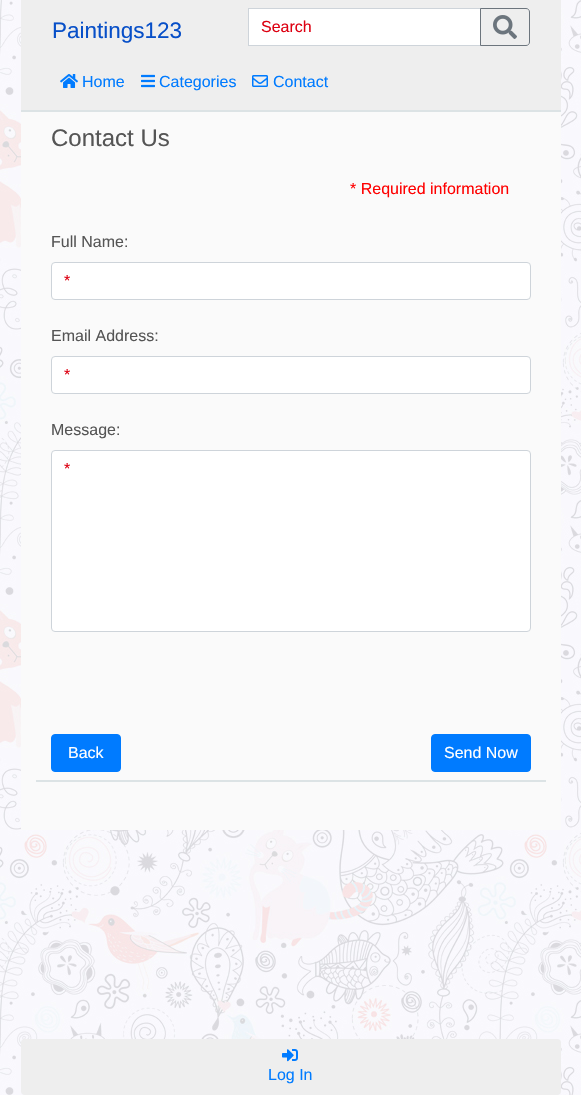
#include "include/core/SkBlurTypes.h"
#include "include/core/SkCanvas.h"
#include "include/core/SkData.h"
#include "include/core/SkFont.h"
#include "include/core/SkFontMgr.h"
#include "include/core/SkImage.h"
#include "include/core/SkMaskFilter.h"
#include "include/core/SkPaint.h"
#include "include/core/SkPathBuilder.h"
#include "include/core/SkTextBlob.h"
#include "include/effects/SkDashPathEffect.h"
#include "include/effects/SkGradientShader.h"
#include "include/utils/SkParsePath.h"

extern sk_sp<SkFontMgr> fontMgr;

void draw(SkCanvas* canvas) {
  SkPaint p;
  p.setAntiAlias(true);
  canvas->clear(SK_ColorWHITE);
  canvas->drawImageRect(SkImages::DeferredFromEncodedData(SkData::MakeFromFileName("images/1.png")), SkRect::MakeLTRB(0, 0, 581, 1095), SkSamplingOptions());
  p.setColor(SkColorSetRGB(250, 250, 250));
  canvas->drawRect(SkRect::MakeLTRB(21, 112, 561, 830), p);
  p.setColor(SkColorSetRGB(238, 238, 238));
  canvas->drawRect(SkRect::MakeLTRB(21, 0, 561, 110), p);
  p.setColor(SkColorSetRGB(220, 227, 229));
  canvas->drawRect(SkRect::MakeLTRB(21, 110, 561, 112), p);
  p.setColor(SK_ColorWHITE);
  canvas->drawRect(SkRect::MakeLTRB(248.5f, 8.5f, 480.5f, 45.5f), p);
  p.setStyle(SkPaint::kStroke_Style);
  p.setStrokeWidth(1);
  p.setColor(SkColorSetRGB(206, 212, 218));
  canvas->drawRect(SkRect::MakeLTRB(248.5f, 8.5f, 480.5f, 45.5f), p);
  p.setColor(SkColorSetRGB(108, 117, 125));
  canvas->drawPath(SkPathBuilder().moveTo(480.5f, 8.5f).lineTo(526, 8.5f).cubicTo(528, 8.5f, 529.5f, 10, 529.5f, 12).lineTo(529.5f, 42).cubicTo(529.5f, 44, 528, 45.5f, 526, 45.5f).lineTo(480.5f, 45.5f).close().detach(), p);
  canvas->drawImageRect(SkImages::DeferredFromEncodedData(SkData::MakeFromFileName("images/2.png")), SkRect::MakeLTRB(493, 15, 517, 39), SkSamplingOptions());
  canvas->drawImageRect(SkImages::DeferredFromEncodedData(SkData::MakeFromFileName("images/3.png")), SkRect::MakeLTRB(60, 74, 78, 88), SkSamplingOptions());
  canvas->drawImageRect(SkImages::DeferredFromEncodedData(SkData::MakeFromFileName("images/4.png")), SkRect::MakeLTRB(141, 74, 155, 88), SkSamplingOptions());
  canvas->drawImageRect(SkImages::DeferredFromEncodedData(SkData::MakeFromFileName("images/5.png")), SkRect::MakeLTRB(252, 75, 268, 87), SkSamplingOptions());
  p.setStyle(SkPaint::kFill_Style);
  p.setColor(SK_ColorWHITE);
  canvas->drawRoundRect(SkRect::MakeLTRB(51.5f, 262.5f, 530.5f, 299.5f), 3.5f, 3.5f, p);
  p.setStyle(SkPaint::kStroke_Style);
  p.setColor(SkColorSetRGB(206, 212, 218));
  canvas->drawRoundRect(SkRect::MakeLTRB(51.5f, 262.5f, 530.5f, 299.5f), 3.5f, 3.5f, p);
  p.setStyle(SkPaint::kFill_Style);
  p.setColor(SK_ColorWHITE);
  canvas->drawRoundRect(SkRect::MakeLTRB(51.5f, 356.5f, 530.5f, 393.5f), 3.5f, 3.5f, p);
  p.setStyle(SkPaint::kStroke_Style);
  p.setColor(SkColorSetRGB(206, 212, 218));
  canvas->drawRoundRect(SkRect::MakeLTRB(51.5f, 356.5f, 530.5f, 393.5f), 3.5f, 3.5f, p);
  p.setStyle(SkPaint::kFill_Style);
  p.setColor(SK_ColorWHITE);
  canvas->drawRoundRect(SkRect::MakeLTRB(51.5f, 450.5f, 530.5f, 631.5f), 3.5f, 3.5f, p);
  p.setStyle(SkPaint::kStroke_Style);
  p.setColor(SkColorSetRGB(206, 212, 218));
  canvas->drawRoundRect(SkRect::MakeLTRB(51.5f, 450.5f, 530.5f, 631.5f), 3.5f, 3.5f, p);
  p.setStyle(SkPaint::kFill_Style);
  p.setColor(SkColorSetRGB(0, 123, 255));
  canvas->drawRoundRect(SkRect::MakeLTRB(51.5f, 734.5f, 120.5f, 771.5f), 3.5f, 3.5f, p);
  p.setStyle(SkPaint::kStroke_Style);
  canvas->drawRoundRect(SkRect::MakeLTRB(51.5f, 734.5f, 120.5f, 771.5f), 3.5f, 3.5f, p);
  p.setStyle(SkPaint::kFill_Style);
  canvas->drawRoundRect(SkRect::MakeLTRB(431.5f, 734.5f, 530.5f, 771.5f), 3.5f, 3.5f, p);
  p.setStyle(SkPaint::kStroke_Style);
  canvas->drawRoundRect(SkRect::MakeLTRB(431.5f, 734.5f, 530.5f, 771.5f), 3.5f, 3.5f, p);
  p.setStyle(SkPaint::kFill_Style);
  p.setColor(SkColorSetRGB(220, 227, 229));
  canvas->drawRect(SkRect::MakeLTRB(36, 780, 546, 782), p);
  p.setColor(SkColorSetRGB(238, 238, 238));
  canvas->drawRoundRect(SkRect::MakeLTRB(21, 1039, 561, 1095), 4, 4, p);
  canvas->drawImageRect(SkImages::DeferredFromEncodedData(SkData::MakeFromFileName("images/6.png")), SkRect::MakeLTRB(282, 1049, 298, 1062), SkSamplingOptions());
  SkFont font1(fontMgr->matchFamilyStyle("Liberation Sans", SkFontStyle::Normal()), 22.5f);
  font1.setSubpixel(true);
  p.setColor(SkColorSetRGB(7, 79, 200));
  canvas->drawString("Paintings123", 52, 38, font1, p);
  SkFont font2(fontMgr->matchFamilyStyle("Liberation Sans", SkFontStyle::Normal()), 16);
  font2.setSubpixel(true);
  p.setColor(SkColorSetRGB(221, 0, 17));
  canvas->drawString("Search", 261, 32, font2, p);
  p.setColor(SkColorSetRGB(0, 123, 255));
  canvas->drawString("Home", 82, 87, font2, p);
  canvas->drawString("Categories", 159, 87, font2, p);
  canvas->drawString("Contact", 273, 87, font2, p);
  SkFont font3(fontMgr->matchFamilyStyle("Liberation Sans", SkFontStyle::Normal()), 24);
  font3.setSubpixel(true);
  p.setColor(SkColorSetRGB(85, 85, 85));
  canvas->drawString("Contact Us", 51, 146, font3, p);
  p.setColor(SkColorSetRGB(255, 0, 0));
  canvas->drawString("* Required information", 350, 194, font2, p);
  p.setColor(SkColorSetRGB(85, 85, 85));
  canvas->drawString("Full Name:", 51, 247, font2, p);
  p.setColor(SkColorSetRGB(221, 0, 17));
  canvas->drawString("*", 64, 286, font2, p);
  p.setColor(SkColorSetRGB(85, 85, 85));
  canvas->drawString("Email Address:", 51, 341, font2, p);
  p.setColor(SkColorSetRGB(221, 0, 17));
  canvas->drawString("*", 64, 380, font2, p);
  p.setColor(SkColorSetRGB(85, 85, 85));
  canvas->drawString("Message:", 51, 435, font2, p);
  p.setColor(SkColorSetRGB(221, 0, 17));
  canvas->drawString("*", 64, 474, font2, p);
  p.setColor(SK_ColorWHITE);
  canvas->drawString("Back", 68, 758, font2, p);
  canvas->drawString("Send Now", 444, 758, font2, p);
  p.setColor(SkColorSetRGB(0, 123, 255));
  canvas->drawString("Log In", 268, 1080, font2, p);
}
